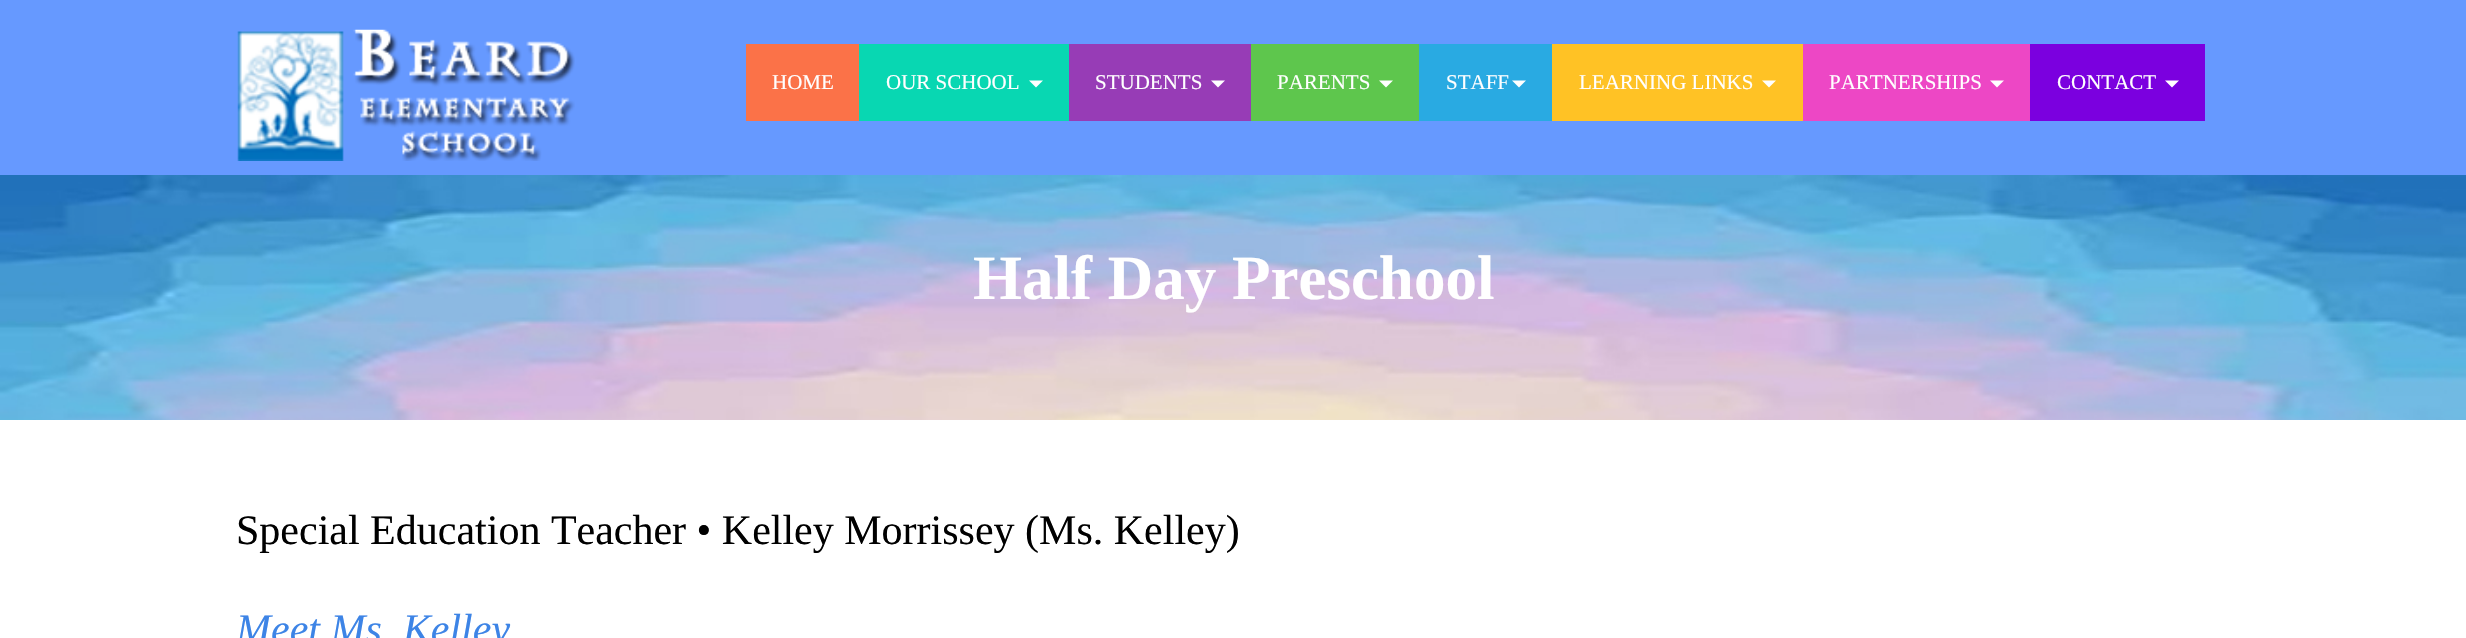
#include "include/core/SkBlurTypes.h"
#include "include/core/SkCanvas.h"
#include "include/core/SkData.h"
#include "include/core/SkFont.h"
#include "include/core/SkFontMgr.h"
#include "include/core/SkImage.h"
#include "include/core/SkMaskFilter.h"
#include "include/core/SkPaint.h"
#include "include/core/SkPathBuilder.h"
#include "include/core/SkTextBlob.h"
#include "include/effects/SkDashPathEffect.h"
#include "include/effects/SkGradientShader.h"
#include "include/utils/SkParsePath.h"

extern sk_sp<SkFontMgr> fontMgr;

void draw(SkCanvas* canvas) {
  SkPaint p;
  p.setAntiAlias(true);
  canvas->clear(SK_ColorWHITE);
  p.setColor(SkColorSetRGB(102, 153, 255));
  canvas->drawRect(SkRect::MakeLTRB(0, 0, 2466, 175), p);
  canvas->drawImageRect(SkImages::DeferredFromEncodedData(SkData::MakeFromFileName("images/1.png")), SkRect::MakeLTRB(237, 29, 575, 161), SkSamplingOptions());
  p.setColor(SkColorSetRGB(251, 114, 72));
  canvas->drawRect(SkRect::MakeLTRB(746, 44, 859, 121), p);
  p.setColor(SkColorSetRGB(8, 215, 178));
  canvas->drawRect(SkRect::MakeLTRB(859, 44, 1069, 121), p);
  p.setColor(SK_ColorWHITE);
  canvas->drawPath(SkPathBuilder().moveTo(1029, 80.5f).lineTo(1043, 80.5f).lineTo(1036, 87.5f).close().detach(), p);
  p.setColor(SkColorSetRGB(151, 60, 182));
  canvas->drawRect(SkRect::MakeLTRB(1069, 44, 1251, 121), p);
  p.setColor(SK_ColorWHITE);
  canvas->drawPath(SkPathBuilder().moveTo(1211, 80.5f).lineTo(1225, 80.5f).lineTo(1218, 87.5f).close().detach(), p);
  p.setColor(SkColorSetRGB(94, 198, 77));
  canvas->drawRect(SkRect::MakeLTRB(1251, 44, 1419, 121), p);
  p.setColor(SK_ColorWHITE);
  canvas->drawPath(SkPathBuilder().moveTo(1379, 80.5f).lineTo(1393, 80.5f).lineTo(1386, 87.5f).close().detach(), p);
  p.setColor(SkColorSetRGB(41, 170, 226));
  canvas->drawRect(SkRect::MakeLTRB(1419, 44, 1552, 121), p);
  p.setColor(SK_ColorWHITE);
  canvas->drawPath(SkPathBuilder().moveTo(1512, 80.5f).lineTo(1526, 80.5f).lineTo(1519, 87.5f).close().detach(), p);
  p.setColor(SkColorSetRGB(255, 194, 37));
  canvas->drawRect(SkRect::MakeLTRB(1552, 44, 1803, 121), p);
  p.setColor(SK_ColorWHITE);
  canvas->drawPath(SkPathBuilder().moveTo(1762, 80.5f).lineTo(1776, 80.5f).lineTo(1769, 87.5f).close().detach(), p);
  p.setColor(SkColorSetRGB(237, 71, 197));
  canvas->drawRect(SkRect::MakeLTRB(1803, 44, 2030, 121), p);
  p.setColor(SK_ColorWHITE);
  canvas->drawPath(SkPathBuilder().moveTo(1990, 80.5f).lineTo(2004, 80.5f).lineTo(1997, 87.5f).close().detach(), p);
  p.setColor(SkColorSetRGB(123, 0, 223));
  canvas->drawRect(SkRect::MakeLTRB(2030, 44, 2205, 121), p);
  p.setColor(SK_ColorWHITE);
  canvas->drawPath(SkPathBuilder().moveTo(2165, 80.5f).lineTo(2179, 80.5f).lineTo(2172, 87.5f).close().detach(), p);
  canvas->drawImageRect(SkImages::DeferredFromEncodedData(SkData::MakeFromFileName("images/2.png")), SkRect::MakeLTRB(0, 175, 2466, 420), SkSamplingOptions());
  SkFont font1(fontMgr->matchFamilyStyle("Liberation Serif", SkFontStyle::Normal()), 21);
  font1.setSubpixel(true);
  canvas->drawString("HOME", 772, 89, font1, p);
  canvas->drawString("OUR SCHOOL", 886, 89, font1, p);
  canvas->drawString("STUDENTS", 1095, 89, font1, p);
  canvas->drawString("PARENTS", 1277, 89, font1, p);
  canvas->drawString("STAFF", 1446, 89, font1, p);
  canvas->drawString("LEARNING LINKS", 1579, 89, font1, p);
  canvas->drawString("PARTNERSHIPS", 1829, 89, font1, p);
  canvas->drawString("CONTACT", 2057, 89, font1, p);
  SkFont font2(fontMgr->matchFamilyStyle("Liberation Serif", SkFontStyle::Bold()), 63);
  font2.setSubpixel(true);
  canvas->drawString("Half Day Preschool", 973, 299, font2, p);
  SkFont font3(fontMgr->matchFamilyStyle("Liberation Serif", SkFontStyle::Normal()), 42);
  font3.setSubpixel(true);
  p.setColor(SK_ColorBLACK);
  canvas->drawString("Special Education Teacher • Kelley Morrissey (Ms. Kelley)", 236, 544, font3, p);
  SkFont font4(fontMgr->matchFamilyStyle("Liberation Serif", SkFontStyle::Italic()), 42);
  font4.setSubpixel(true);
  p.setColor(SkColorSetRGB(61, 132, 230));
  canvas->drawString("Meet Ms. Kelley", 236, 643, font4, p);
}
